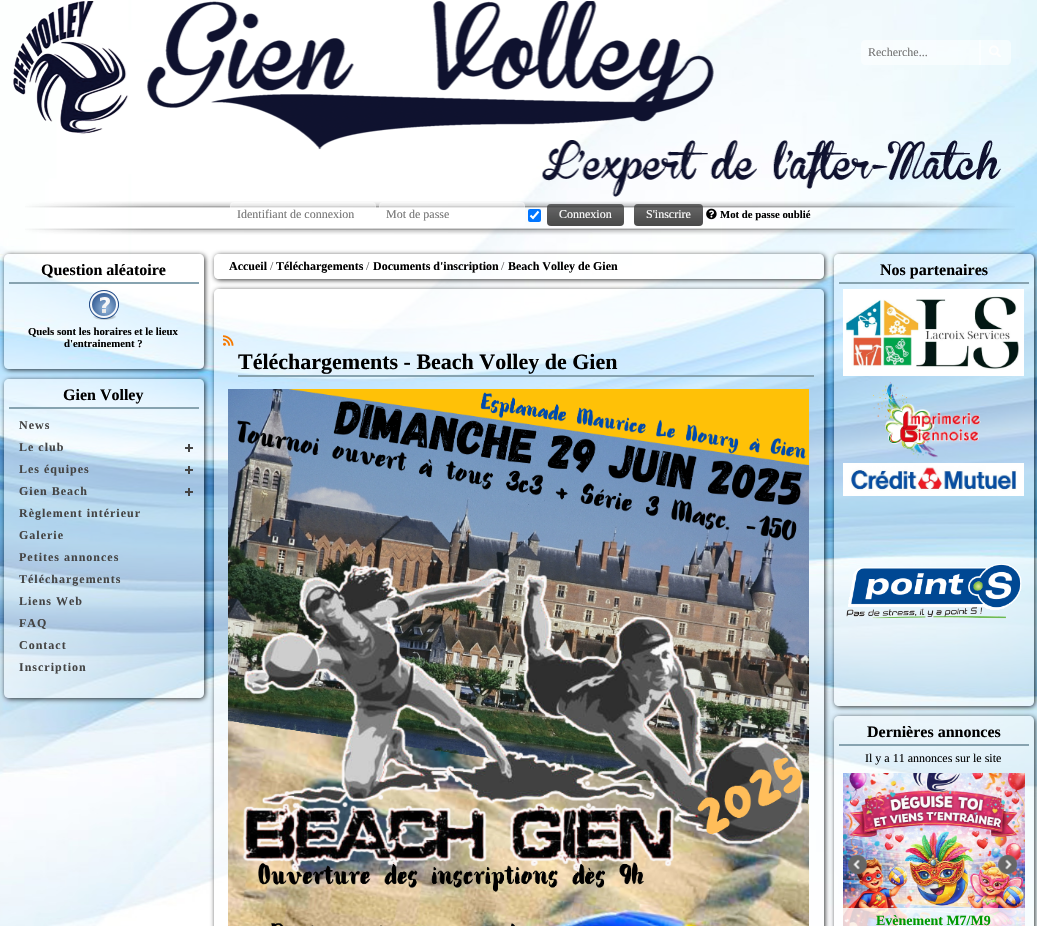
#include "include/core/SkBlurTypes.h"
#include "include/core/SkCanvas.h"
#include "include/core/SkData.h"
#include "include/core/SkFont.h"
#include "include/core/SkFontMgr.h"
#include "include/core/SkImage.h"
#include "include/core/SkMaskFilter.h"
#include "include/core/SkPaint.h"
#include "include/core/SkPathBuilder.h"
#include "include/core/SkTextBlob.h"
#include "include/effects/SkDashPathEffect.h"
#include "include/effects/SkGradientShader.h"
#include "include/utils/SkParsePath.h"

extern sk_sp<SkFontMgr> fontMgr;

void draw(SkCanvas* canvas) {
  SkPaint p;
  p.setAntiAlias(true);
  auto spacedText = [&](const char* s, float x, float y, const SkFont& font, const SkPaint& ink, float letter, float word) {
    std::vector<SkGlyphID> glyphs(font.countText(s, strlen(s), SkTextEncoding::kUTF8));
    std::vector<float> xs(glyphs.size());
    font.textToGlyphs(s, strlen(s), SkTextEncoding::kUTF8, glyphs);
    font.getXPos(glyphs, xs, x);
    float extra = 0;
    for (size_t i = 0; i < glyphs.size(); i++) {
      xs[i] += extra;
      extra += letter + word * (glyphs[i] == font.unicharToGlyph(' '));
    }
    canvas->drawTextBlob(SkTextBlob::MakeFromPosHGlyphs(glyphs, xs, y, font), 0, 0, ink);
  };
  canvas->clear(SK_ColorWHITE);
  canvas->drawImageRect(SkImages::DeferredFromEncodedData(SkData::MakeFromFileName("images/1.png")), SkRect::MakeLTRB(0, 0, 1037, 926), SkSamplingOptions());
  canvas->drawImageRect(SkImages::DeferredFromEncodedData(SkData::MakeFromFileName("images/2.png")), SkRect::MakeLTRB(13, 1, 1001, 197), SkSamplingOptions());
  p.setColor(SkColorSetARGB(128, 255, 255, 255));
  canvas->drawPath(SkPathBuilder().moveTo(865, 40).lineTo(981, 40).lineTo(981, 65).lineTo(865, 65).cubicTo(863, 65, 861, 63, 861, 61).lineTo(861, 44).cubicTo(861, 42, 863, 40, 865, 40).close().detach(), p);
  canvas->drawPath(SkPathBuilder().moveTo(979, 40).lineTo(1007, 40).cubicTo(1009, 40, 1011, 42, 1011, 44).lineTo(1011, 61).cubicTo(1011, 63, 1009, 65, 1007, 65).lineTo(979, 65).close().detach(), p);
  canvas->drawImageRect(SkImages::DeferredFromEncodedData(SkData::MakeFromFileName("images/3.png")), SkRect::MakeLTRB(989, 45, 1001, 57), SkSamplingOptions());
  canvas->drawImageRect(SkImages::DeferredFromEncodedData(SkData::MakeFromFileName("images/4.png")), SkRect::MakeLTRB(25, 201, 1015, 235), SkSamplingOptions());
  canvas->drawRoundRect(SkRect::MakeLTRB(230, 202, 376, 227), 4, 4, p);
  p.setStyle(SkPaint::kStroke_Style);
  p.setStrokeWidth(1);
  p.setColor(SkColorSetARGB(51, 255, 255, 255));
  canvas->drawRoundRect(SkRect::MakeLTRB(230.5f, 202.5f, 375.5f, 226.5f), 3.5f, 3.5f, p);
  p.setStyle(SkPaint::kFill_Style);
  p.setColor(SkColorSetARGB(128, 255, 255, 255));
  canvas->drawRoundRect(SkRect::MakeLTRB(379, 202, 525, 227), 4, 4, p);
  p.setStyle(SkPaint::kStroke_Style);
  p.setColor(SkColorSetARGB(51, 255, 255, 255));
  canvas->drawRoundRect(SkRect::MakeLTRB(379.5f, 202.5f, 524.5f, 226.5f), 3.5f, 3.5f, p);
  p.setStyle(SkPaint::kFill_Style);
  p.setColor(SkColorSetRGB(0, 117, 255));
  canvas->drawRoundRect(SkRect::MakeLTRB(528, 209, 541, 222), 2, 2, p);
  p.setStyle(SkPaint::kStroke_Style);
  p.setStrokeWidth(2.1f);
  p.setColor(SK_ColorWHITE);
  canvas->drawPath(SkPathBuilder().moveTo(530.5f, 215.5f).lineTo(533, 218).lineTo(538.5f, 211.5f).detach(), p);
  p.setStyle(SkPaint::kFill_Style);
  p.setColor(SkColorSetARGB(179, 0, 0, 0));
  canvas->drawRoundRect(SkRect::MakeLTRB(547, 204, 624, 226), 4, 4, p);
  {
    const SkColor colors[] = {SkColorSetARGB(46, 255, 255, 255), SkColorSetARGB(26, 56, 56, 56)};
    const float stops[] = {0, 1};
    const SkPoint ends[] = {{586, 204}, {586, 226}};
    p.setShader(SkGradientShader::MakeLinear(ends, colors, stops, 2, SkTileMode::kClamp));
    p.setAlpha(255);
  }
  canvas->drawRoundRect(SkRect::MakeLTRB(547, 204, 624, 226), 4, 4, p);
  p.setShader(nullptr);
  p.setColor(SkColorSetARGB(179, 0, 0, 0));
  canvas->drawRoundRect(SkRect::MakeLTRB(634, 204, 703, 226), 4, 4, p);
  {
    const SkColor colors[] = {SkColorSetARGB(46, 255, 255, 255), SkColorSetARGB(26, 56, 56, 56)};
    const float stops[] = {0, 1};
    const SkPoint ends[] = {{669, 204}, {669, 226}};
    p.setShader(SkGradientShader::MakeLinear(ends, colors, stops, 2, SkTileMode::kClamp));
    p.setAlpha(255);
  }
  canvas->drawRoundRect(SkRect::MakeLTRB(634, 204, 703, 226), 4, 4, p);
  canvas->drawImageRect(SkImages::DeferredFromEncodedData(SkData::MakeFromFileName("images/5.png")), SkRect::MakeLTRB(706, 208, 717, 220), SkSamplingOptions());
  canvas->save();
  canvas->clipPath(SkPathBuilder(SkPathFillType::kEvenOdd).moveTo(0, 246).lineTo(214, 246).lineTo(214, 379).lineTo(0, 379).close().moveTo(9, 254).lineTo(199, 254).cubicTo(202, 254, 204, 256, 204, 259).lineTo(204, 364).cubicTo(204, 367, 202, 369, 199, 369).lineTo(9, 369).cubicTo(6, 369, 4, 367, 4, 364).lineTo(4, 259).cubicTo(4, 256, 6, 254, 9, 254).close().detach(), true);
  p.setShader(nullptr);
  p.setColor(SkColorSetARGB(204, 0, 0, 0));
  p.setMaskFilter(SkMaskFilter::MakeBlur(kNormal_SkBlurStyle, 2.5f));
  canvas->drawRoundRect(SkRect::MakeLTRB(5, 255, 205, 370), 5, 5, p);
  p.setMaskFilter(nullptr);
  canvas->restore();
  p.setColor(SkColorSetARGB(128, 255, 255, 255));
  canvas->drawRoundRect(SkRect::MakeLTRB(4, 254, 204, 369), 5, 5, p);
  p.setColor(SkColorSetRGB(135, 163, 176));
  canvas->drawRect(SkRect::MakeLTRB(9, 282, 199, 284), p);
  canvas->drawImageRect(SkImages::DeferredFromEncodedData(SkData::MakeFromFileName("images/6.png")), SkRect::MakeLTRB(89, 290, 119, 320), SkSamplingOptions());
  canvas->save();
  canvas->clipPath(SkPathBuilder(SkPathFillType::kEvenOdd).moveTo(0, 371).lineTo(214, 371).lineTo(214, 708).lineTo(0, 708).close().moveTo(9, 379).lineTo(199, 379).cubicTo(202, 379, 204, 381, 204, 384).lineTo(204, 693).cubicTo(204, 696, 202, 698, 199, 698).lineTo(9, 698).cubicTo(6, 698, 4, 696, 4, 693).lineTo(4, 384).cubicTo(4, 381, 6, 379, 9, 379).close().detach(), true);
  p.setColor(SkColorSetARGB(204, 0, 0, 0));
  p.setMaskFilter(SkMaskFilter::MakeBlur(kNormal_SkBlurStyle, 2.5f));
  canvas->drawRoundRect(SkRect::MakeLTRB(5, 380, 205, 699), 5, 5, p);
  p.setMaskFilter(nullptr);
  canvas->restore();
  p.setColor(SkColorSetARGB(128, 255, 255, 255));
  canvas->drawRoundRect(SkRect::MakeLTRB(4, 379, 204, 698), 5, 5, p);
  p.setColor(SkColorSetRGB(135, 163, 176));
  canvas->drawRect(SkRect::MakeLTRB(9, 407, 199, 409), p);
  p.setColor(SkColorSetRGB(68, 68, 68));
  canvas->drawRect(SkRect::MakeLTRB(188, 444, 190, 452), p);
  canvas->drawRect(SkRect::MakeLTRB(185, 447, 193, 449), p);
  canvas->drawRect(SkRect::MakeLTRB(188, 466, 190, 474), p);
  canvas->drawRect(SkRect::MakeLTRB(185, 469, 193, 471), p);
  canvas->drawRect(SkRect::MakeLTRB(188, 488, 190, 496), p);
  canvas->drawRect(SkRect::MakeLTRB(185, 491, 193, 493), p);
  canvas->save();
  canvas->clipPath(SkPathBuilder(SkPathFillType::kEvenOdd).moveTo(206, 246).lineTo(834, 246).lineTo(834, 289).lineTo(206, 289).close().moveTo(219, 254).lineTo(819, 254).cubicTo(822, 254, 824, 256, 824, 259).lineTo(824, 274).cubicTo(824, 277, 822, 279, 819, 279).lineTo(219, 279).cubicTo(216, 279, 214, 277, 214, 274).lineTo(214, 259).cubicTo(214, 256, 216, 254, 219, 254).close().detach(), true);
  p.setColor(SkColorSetARGB(204, 0, 0, 0));
  p.setMaskFilter(SkMaskFilter::MakeBlur(kNormal_SkBlurStyle, 2.5f));
  canvas->drawRoundRect(SkRect::MakeLTRB(215, 255, 825, 280), 5, 5, p);
  p.setMaskFilter(nullptr);
  canvas->restore();
  p.setColor(SkColorSetARGB(128, 255, 255, 255));
  canvas->drawRoundRect(SkRect::MakeLTRB(214, 254, 824, 279), 5, 5, p);
  canvas->save();
  canvas->clipPath(SkPathBuilder(SkPathFillType::kEvenOdd).moveTo(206, 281).lineTo(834, 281).lineTo(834, 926).lineTo(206, 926).close().moveTo(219, 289).lineTo(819, 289).cubicTo(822, 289, 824, 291, 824, 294).lineTo(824, 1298).cubicTo(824, 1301, 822, 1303, 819, 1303).lineTo(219, 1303).cubicTo(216, 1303, 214, 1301, 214, 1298).lineTo(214, 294).cubicTo(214, 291, 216, 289, 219, 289).close().detach(), true);
  p.setColor(SkColorSetARGB(204, 0, 0, 0));
  p.setMaskFilter(SkMaskFilter::MakeBlur(kNormal_SkBlurStyle, 2.5f));
  canvas->drawRoundRect(SkRect::MakeLTRB(215, 290, 825, 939), 5, 5, p);
  p.setMaskFilter(nullptr);
  canvas->restore();
  p.setColor(SkColorSetARGB(128, 255, 255, 255));
  canvas->drawRoundRect(SkRect::MakeLTRB(214, 289, 824, 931), 5, 5, p);
  canvas->drawImageRect(SkImages::DeferredFromEncodedData(SkData::MakeFromFileName("images/7.png")), SkRect::MakeLTRB(223, 335, 234, 346), SkSamplingOptions());
  p.setColor(SkColorSetRGB(135, 163, 176));
  canvas->drawRect(SkRect::MakeLTRB(238, 375, 814, 377), p);
  canvas->drawImageRect(SkImages::DeferredFromEncodedData(SkData::MakeFromFileName("images/8.png")), SkRect::MakeLTRB(228, 389, 809, 926), SkSamplingOptions());
  canvas->save();
  canvas->clipPath(SkPathBuilder(SkPathFillType::kEvenOdd).moveTo(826, 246).lineTo(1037, 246).lineTo(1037, 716).lineTo(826, 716).close().moveTo(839, 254).lineTo(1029, 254).cubicTo(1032, 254, 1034, 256, 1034, 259).lineTo(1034, 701).cubicTo(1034, 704, 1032, 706, 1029, 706).lineTo(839, 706).cubicTo(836, 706, 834, 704, 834, 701).lineTo(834, 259).cubicTo(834, 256, 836, 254, 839, 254).close().detach(), true);
  p.setColor(SkColorSetARGB(204, 0, 0, 0));
  p.setMaskFilter(SkMaskFilter::MakeBlur(kNormal_SkBlurStyle, 2.5f));
  canvas->drawRoundRect(SkRect::MakeLTRB(835, 255, 1035, 707), 5, 5, p);
  p.setMaskFilter(nullptr);
  canvas->restore();
  p.setColor(SkColorSetARGB(128, 255, 255, 255));
  canvas->drawRoundRect(SkRect::MakeLTRB(834, 254, 1034, 706), 5, 5, p);
  p.setColor(SkColorSetRGB(135, 163, 176));
  canvas->drawRect(SkRect::MakeLTRB(839, 282, 1029, 284), p);
  canvas->drawImageRect(SkImages::DeferredFromEncodedData(SkData::MakeFromFileName("images/9.png")), SkRect::MakeLTRB(843, 289, 1024, 376), SkSamplingOptions());
  canvas->drawImageRect(SkImages::DeferredFromEncodedData(SkData::MakeFromFileName("images/10.png")), SkRect::MakeLTRB(873, 382, 981, 458), SkSamplingOptions());
  canvas->drawImageRect(SkImages::DeferredFromEncodedData(SkData::MakeFromFileName("images/11.png")), SkRect::MakeLTRB(843, 463, 1024, 496), SkSamplingOptions());
  canvas->drawImageRect(SkImages::DeferredFromEncodedData(SkData::MakeFromFileName("images/12.png")), SkRect::MakeLTRB(846, 564, 1022, 619), SkSamplingOptions());
  canvas->save();
  canvas->clipPath(SkPathBuilder(SkPathFillType::kEvenOdd).moveTo(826, 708).lineTo(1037, 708).lineTo(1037, 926).lineTo(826, 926).close().moveTo(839, 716).lineTo(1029, 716).cubicTo(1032, 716, 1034, 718, 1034, 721).lineTo(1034, 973).cubicTo(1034, 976, 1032, 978, 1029, 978).lineTo(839, 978).cubicTo(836, 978, 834, 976, 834, 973).lineTo(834, 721).cubicTo(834, 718, 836, 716, 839, 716).close().detach(), true);
  p.setColor(SkColorSetARGB(204, 0, 0, 0));
  p.setMaskFilter(SkMaskFilter::MakeBlur(kNormal_SkBlurStyle, 2.5f));
  canvas->drawRoundRect(SkRect::MakeLTRB(835, 717, 1035, 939), 5, 5, p);
  p.setMaskFilter(nullptr);
  canvas->restore();
  p.setColor(SkColorSetARGB(128, 255, 255, 255));
  canvas->drawRoundRect(SkRect::MakeLTRB(834, 716, 1034, 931), 5, 5, p);
  p.setColor(SkColorSetRGB(135, 163, 176));
  canvas->drawRect(SkRect::MakeLTRB(839, 744, 1029, 746), p);
  canvas->drawImageRect(SkImages::DeferredFromEncodedData(SkData::MakeFromFileName("images/15.png")), SkRect::MakeLTRB(843, 773, 1025, 926), SkSamplingOptions());
  canvas->drawImageRect(SkImages::DeferredFromEncodedData(SkData::MakeFromFileName("images/13.png")), SkRect::MakeLTRB(848, 855, 867, 874), SkSamplingOptions());
  canvas->drawImageRect(SkImages::DeferredFromEncodedData(SkData::MakeFromFileName("images/14.png")), SkRect::MakeLTRB(998, 855, 1017, 874), SkSamplingOptions());
  p.setColor(SkColorSetARGB(204, 255, 255, 255));
  canvas->drawRect(SkRect::MakeLTRB(843, 908, 1025, 926), p);
  SkFont font1(fontMgr->matchFamilyStyle("Liberation Serif", SkFontStyle::Normal()), 12);
  font1.setSubpixel(true);
  p.setColor(SkColorSetRGB(117, 117, 117));
  canvas->drawString("Recherche...", 868, 56, font1, p);
  canvas->drawString("Identifiant de connexion", 237, 218, font1, p);
  canvas->drawString("Mot de passe", 386, 218, font1, p);
  p.setColor(SkColorSetRGB(254, 254, 254));
  canvas->drawString("Connexion", 559, 218, font1, p);
  canvas->drawString("S'inscrire", 646, 218, font1, p);
  SkFont font2(fontMgr->matchFamilyStyle("Liberation Serif", SkFontStyle::Bold()), 10.75f);
  font2.setSubpixel(true);
  p.setColor(SK_ColorBLACK);
  canvas->drawString("Mot de passe oublié", 720, 218, font2, p);
  SkFont font3(fontMgr->matchFamilyStyle("Liberation Serif", SkFontStyle::Bold()), 16);
  font3.setSubpixel(true);
  canvas->drawString("Question aléatoire", 41, 275, font3, p);
  canvas->drawString("Quels sont les horaires et le lieux", 28, 335, font2, p);
  canvas->drawString("d'entrainement ?", 64, 347, font2, p);
  canvas->drawString("Gien Volley", 63, 400, font3, p);
  SkFont font4(fontMgr->matchFamilyStyle("Liberation Serif", SkFontStyle::Bold()), 12);
  font4.setSubpixel(true);
  p.setColor(SkColorSetRGB(68, 68, 68));
  spacedText("News", 19, 429, font4, p, 1, 0);
  spacedText("Le club", 19, 451, font4, p, 1, 0);
  spacedText("Les équipes", 19, 473, font4, p, 1, 0);
  spacedText("Gien Beach", 19, 495, font4, p, 1, 0);
  spacedText("Règlement intérieur", 19, 517, font4, p, 1, 0);
  spacedText("Galerie", 19, 539, font4, p, 1, 0);
  spacedText("Petites annonces", 19, 561, font4, p, 1, 0);
  spacedText("Téléchargements", 19, 583, font4, p, 1, 0);
  spacedText("Liens Web", 19, 605, font4, p, 1, 0);
  spacedText("FAQ", 19, 627, font4, p, 1, 0);
  spacedText("Contact", 19, 649, font4, p, 1, 0);
  spacedText("Inscription", 19, 671, font4, p, 1, 0);
  p.setColor(SK_ColorBLACK);
  canvas->drawString("Accueil", 229, 270, font4, p);
  p.setColor(SkColorSetRGB(97, 97, 97));
  canvas->drawString("/", 270, 270, font1, p);
  p.setColor(SK_ColorBLACK);
  canvas->drawString("Téléchargements", 276, 270, font4, p);
  p.setColor(SkColorSetRGB(97, 97, 97));
  canvas->drawString("/", 366, 270, font1, p);
  p.setColor(SK_ColorBLACK);
  canvas->drawString("Documents d'inscription", 373, 270, font4, p);
  p.setColor(SkColorSetRGB(97, 97, 97));
  canvas->drawString("/", 501, 270, font1, p);
  p.setColor(SK_ColorBLACK);
  canvas->drawString("Beach Volley de Gien", 508, 270, font4, p);
  SkFont font5(fontMgr->matchFamilyStyle("Liberation Serif", SkFontStyle::Bold()), 22);
  font5.setSubpixel(true);
  canvas->drawString("Téléchargements - Beach Volley de Gien", 238, 369, font5, p);
  canvas->drawString("Nos partenaires", 880, 275, font3, p);
  canvas->drawString("Dernières annonces", 867, 737, font3, p);
  canvas->drawString("Il y a 11 annonces sur le site", 865, 762, font1, p);
  SkFont font6(fontMgr->matchFamilyStyle("Liberation Serif", SkFontStyle::Bold()), 14);
  font6.setSubpixel(true);
  p.setColor(SkColorSetRGB(0, 153, 0));
  canvas->drawString("Evènement M7/M9", 876, 925, font6, p);
}
